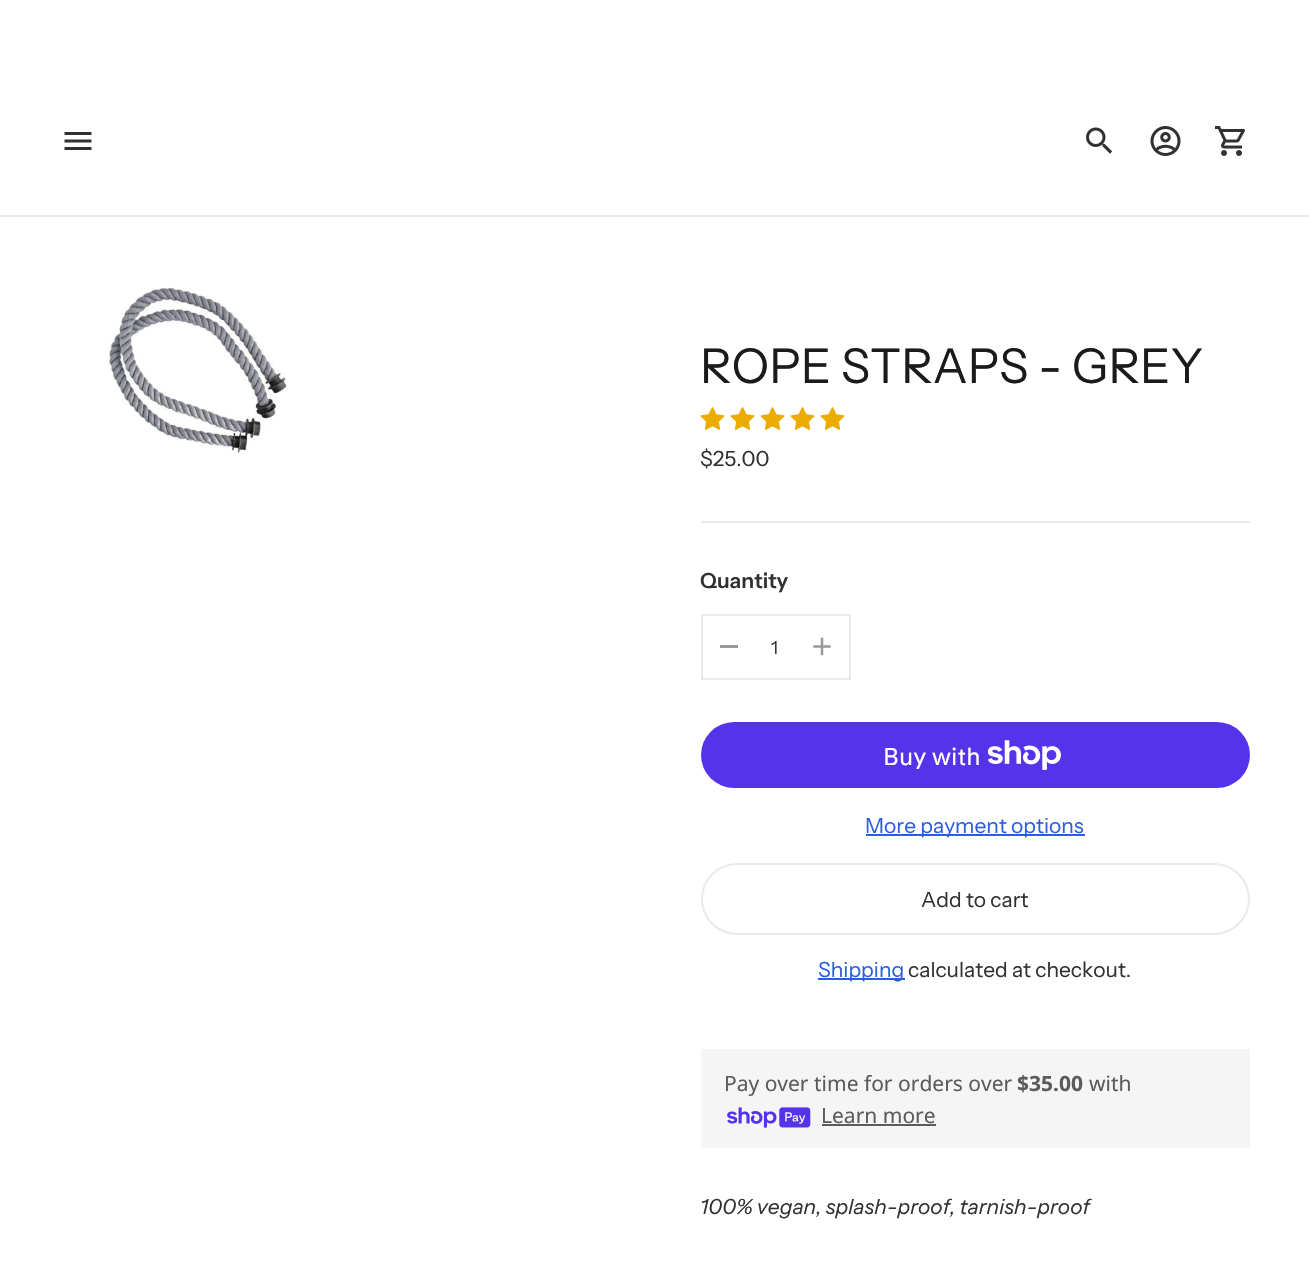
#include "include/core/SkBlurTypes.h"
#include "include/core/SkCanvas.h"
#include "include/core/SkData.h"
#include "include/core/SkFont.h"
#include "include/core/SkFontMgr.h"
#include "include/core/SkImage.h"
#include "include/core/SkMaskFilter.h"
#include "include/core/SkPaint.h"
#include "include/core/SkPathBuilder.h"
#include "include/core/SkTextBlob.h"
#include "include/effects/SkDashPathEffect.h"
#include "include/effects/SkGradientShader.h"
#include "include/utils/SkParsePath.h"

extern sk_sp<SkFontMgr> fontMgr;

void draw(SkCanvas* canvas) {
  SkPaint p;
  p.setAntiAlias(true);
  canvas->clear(SK_ColorWHITE);
  p.setColor(SkColorSetRGB(234, 234, 234));
  canvas->drawRect(SkRect::MakeLTRB(0, 215, 1309, 217), p);
  canvas->drawImageRect(SkImages::DeferredFromEncodedData(SkData::MakeFromFileName("images/1.png")), SkRect::MakeLTRB(64, 132, 92, 150), SkSamplingOptions());
  canvas->drawImageRect(SkImages::DeferredFromEncodedData(SkData::MakeFromFileName("images/2.png")), SkRect::MakeLTRB(1086, 127, 1113, 154), SkSamplingOptions());
  canvas->drawImageRect(SkImages::DeferredFromEncodedData(SkData::MakeFromFileName("images/3.png")), SkRect::MakeLTRB(1150, 126, 1181, 156), SkSamplingOptions());
  canvas->drawImageRect(SkImages::DeferredFromEncodedData(SkData::MakeFromFileName("images/4.png")), SkRect::MakeLTRB(1215, 126, 1245, 156), SkSamplingOptions());
  canvas->drawImageRect(SkImages::DeferredFromEncodedData(SkData::MakeFromFileName("images/5.png")), SkRect::MakeLTRB(60, 276, 339, 462), SkSamplingOptions());
  canvas->drawImageRect(SkImages::DeferredFromEncodedData(SkData::MakeFromFileName("images/6.png")), SkRect::MakeLTRB(700, 407, 725, 430), SkSamplingOptions());
  canvas->drawImageRect(SkImages::DeferredFromEncodedData(SkData::MakeFromFileName("images/6.png")), SkRect::MakeLTRB(730, 407, 755, 430), SkSamplingOptions());
  canvas->drawImageRect(SkImages::DeferredFromEncodedData(SkData::MakeFromFileName("images/6.png")), SkRect::MakeLTRB(760, 407, 785, 430), SkSamplingOptions());
  canvas->drawImageRect(SkImages::DeferredFromEncodedData(SkData::MakeFromFileName("images/6.png")), SkRect::MakeLTRB(790, 407, 815, 430), SkSamplingOptions());
  canvas->drawImageRect(SkImages::DeferredFromEncodedData(SkData::MakeFromFileName("images/6.png")), SkRect::MakeLTRB(820, 407, 845, 430), SkSamplingOptions());
  canvas->drawRect(SkRect::MakeLTRB(701, 521, 1250, 523), p);
  p.setStyle(SkPaint::kStroke_Style);
  p.setStrokeWidth(2);
  canvas->drawRect(SkRect::MakeLTRB(702, 615, 850, 679), p);
  p.setStyle(SkPaint::kFill_Style);
  p.setColor(SkColorSetRGB(152, 152, 152));
  canvas->drawRect(SkRect::MakeLTRB(720, 645, 738, 648), p);
  canvas->drawImageRect(SkImages::DeferredFromEncodedData(SkData::MakeFromFileName("images/7.png")), SkRect::MakeLTRB(813, 637, 831, 656), SkSamplingOptions());
  p.setColor(SkColorSetRGB(84, 51, 235));
  canvas->drawRoundRect(SkRect::MakeLTRB(701, 722, 1250, 788), 33, 33, p);
  canvas->drawImageRect(SkImages::DeferredFromEncodedData(SkData::MakeFromFileName("images/8.png")), SkRect::MakeLTRB(987, 740, 1061, 770), SkSamplingOptions());
  p.setColor(SkColorSetRGB(42, 93, 223));
  canvas->drawRect(SkRect::MakeLTRB(866, 834, 1085, 836), p);
  p.setStyle(SkPaint::kStroke_Style);
  p.setColor(SkColorSetRGB(234, 234, 234));
  canvas->drawRoundRect(SkRect::MakeLTRB(702, 864, 1249, 934), 35, 35, p);
  p.setStyle(SkPaint::kFill_Style);
  p.setColor(SkColorSetRGB(42, 93, 223));
  canvas->drawRect(SkRect::MakeLTRB(818, 978, 905, 980), p);
  p.setColor(SkColorSetRGB(245, 245, 245));
  canvas->drawRect(SkRect::MakeLTRB(701, 1049, 1250, 1148), p);
  canvas->drawImageRect(SkImages::DeferredFromEncodedData(SkData::MakeFromFileName("images/9.png")), SkRect::MakeLTRB(727, 1107, 811, 1128), SkSamplingOptions());
  p.setColor(SkColorSetRGB(92, 92, 92));
  canvas->drawRect(SkRect::MakeLTRB(822, 1124, 936, 1126), p);
  SkFont font1(fontMgr->matchFamilyStyle("Instrument Sans", SkFontStyle::Normal()), 48);
  font1.setSubpixel(true);
  p.setColor(SkColorSetRGB(27, 27, 27));
  canvas->drawString("ROPE STRAPS - GREY", 700, 383, font1, p);
  SkFont font2(fontMgr->matchFamilyStyle("Instrument Sans", SkFontStyle::Normal()), 21);
  font2.setSubpixel(true);
  p.setColor(SkColorSetRGB(49, 49, 49));
  canvas->drawString("$25.00", 700, 466, font2, p);
  SkFont font3(fontMgr->matchFamilyStyle("Instrument Sans", SkFontStyle(600, SkFontStyle::kNormal_Width, SkFontStyle::kUpright_Slant)), 21);
  font3.setSubpixel(true);
  canvas->drawString("Quantity", 700, 588, font3, p);
  SkFont font4(fontMgr->matchFamilyStyle("Instrument Sans", SkFontStyle::Normal()), 18);
  font4.setSubpixel(true);
  canvas->drawString("1", 771, 654, font4, p);
  SkFont font5(fontMgr->matchFamilyStyle("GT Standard", SkFontStyle::Normal()), 24);
  font5.setSubpixel(true);
  p.setColor(SK_ColorWHITE);
  canvas->drawString("Buy with", 883, 765, font5, p);
  p.setColor(SkColorSetRGB(42, 93, 223));
  canvas->drawString("More payment options", 865, 833, font2, p);
  p.setColor(SkColorSetRGB(49, 49, 49));
  canvas->drawString("Add to cart", 921, 907, font2, p);
  p.setColor(SkColorSetRGB(42, 93, 223));
  canvas->drawString("Shipping", 818, 977, font2, p);
  p.setColor(SkColorSetRGB(49, 49, 49));
  canvas->drawString("calculated at checkout.", 908, 977, font2, p);
  SkFont font6(fontMgr->matchFamilyStyle("Noto Sans", SkFontStyle::Normal()), 21);
  font6.setSubpixel(true);
  p.setColor(SkColorSetRGB(92, 92, 92));
  canvas->drawString("Pay over time for orders over", 724, 1091, font6, p);
  SkFont font7(fontMgr->matchFamilyStyle("Noto Sans", SkFontStyle::Bold()), 21);
  font7.setSubpixel(true);
  canvas->drawString("$35.00", 1017, 1091, font7, p);
  canvas->drawString("with", 1089, 1091, font6, p);
  canvas->drawString("Learn more", 821, 1123, font6, p);
  SkFont font8(fontMgr->matchFamilyStyle("Instrument Sans", SkFontStyle::Italic()), 21);
  font8.setSubpixel(true);
  p.setColor(SkColorSetRGB(49, 49, 49));
  canvas->drawString("100% vegan, splash-proof, tarnish-proof", 700, 1214, font8, p);
}
